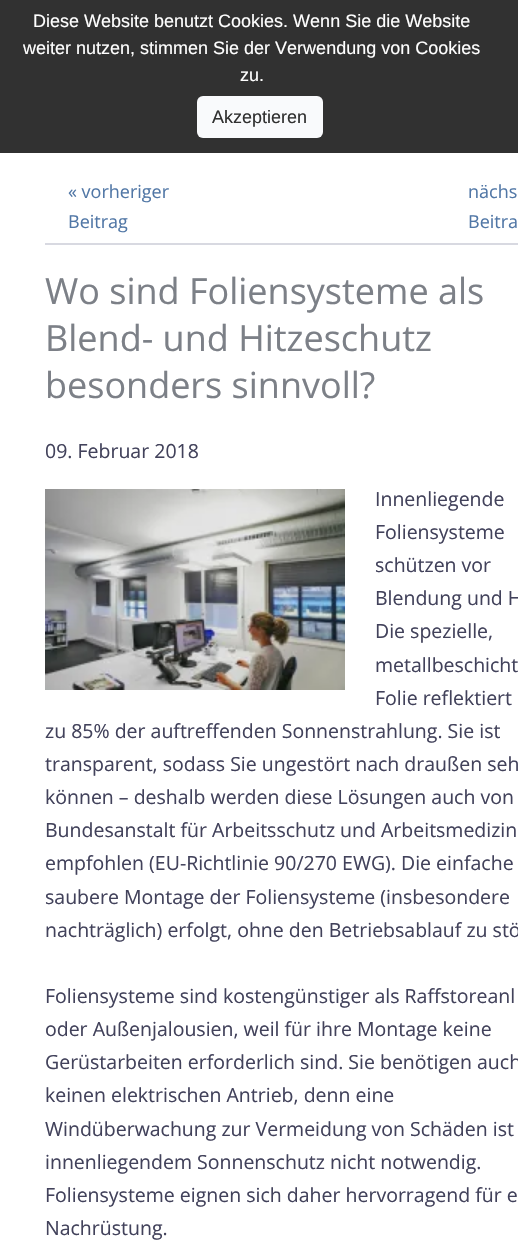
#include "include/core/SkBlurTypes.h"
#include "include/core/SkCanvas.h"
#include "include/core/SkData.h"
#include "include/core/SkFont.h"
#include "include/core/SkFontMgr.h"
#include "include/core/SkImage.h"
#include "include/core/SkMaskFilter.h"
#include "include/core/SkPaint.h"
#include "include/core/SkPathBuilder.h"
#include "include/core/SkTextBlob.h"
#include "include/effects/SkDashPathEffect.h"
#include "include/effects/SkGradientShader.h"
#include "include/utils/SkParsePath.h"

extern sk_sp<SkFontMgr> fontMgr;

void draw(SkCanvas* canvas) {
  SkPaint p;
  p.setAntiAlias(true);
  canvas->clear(SK_ColorWHITE);
  p.setColor(SkColorSetRGB(49, 49, 49));
  canvas->drawRect(SkRect::MakeLTRB(0, 0, 518, 153), p);
  p.setColor(SkColorSetRGB(249, 250, 252));
  canvas->drawRoundRect(SkRect::MakeLTRB(197, 96, 323, 138), 6, 6, p);
  p.setColor(SkColorSetRGB(216, 217, 225));
  canvas->drawRect(SkRect::MakeLTRB(45, 243, 518, 245), p);
  canvas->drawImageRect(SkImages::DeferredFromEncodedData(SkData::MakeFromFileName("images/1.png")), SkRect::MakeLTRB(45, 489, 345, 690), SkSamplingOptions());
  SkFont font1(fontMgr->matchFamilyStyle("Liberation Sans", SkFontStyle::Normal()), 18);
  font1.setSubpixel(true);
  p.setColor(SK_ColorWHITE);
  canvas->drawString("Diese Website benutzt Cookies. Wenn Sie die Website", 33, 27, font1, p);
  canvas->drawString("weiter nutzen, stimmen Sie der Verwendung von Cookies", 23, 54, font1, p);
  canvas->drawString("zu.", 240, 81, font1, p);
  p.setColor(SkColorSetRGB(49, 49, 49));
  canvas->drawString("Akzeptieren", 212, 123, font1, p);
  SkFont font2(fontMgr->matchFamilyStyle("Open Sans", SkFontStyle::Normal()), 18);
  font2.setSubpixel(true);
  p.setColor(SkColorSetRGB(81, 119, 166));
  canvas->drawString("« vorheriger", 68, 198, font2, p);
  canvas->drawString("Beitrag", 68, 228, font2, p);
  canvas->drawString("nächs", 468, 198, font2, p);
  canvas->drawString("Beitra", 468, 228, font2, p);
  SkFont font3(fontMgr->matchFamilyStyle("Open Sans", SkFontStyle::Normal()), 36);
  font3.setSubpixel(true);
  p.setColor(SkColorSetRGB(124, 128, 135));
  canvas->drawString("Wo sind Foliensysteme als", 45, 304, font3, p);
  canvas->drawString("Blend- und Hitzeschutz", 45, 351, font3, p);
  canvas->drawString("besonders sinnvoll?", 45, 398, font3, p);
  SkFont font4(fontMgr->matchFamilyStyle("Open Sans", SkFontStyle::Normal()), 19.5f);
  font4.setSubpixel(true);
  p.setColor(SkColorSetRGB(66, 66, 91));
  canvas->drawString("09. Februar 2018", 45, 458, font4, p);
  canvas->drawString("Innenliegende", 375, 506, font4, p);
  canvas->drawString("Foliensysteme", 375, 539, font4, p);
  canvas->drawString("schützen vor", 375, 572, font4, p);
  canvas->drawString("Blendung und H", 375, 605, font4, p);
  canvas->drawString("Die spezielle,", 375, 638, font4, p);
  canvas->drawString("metallbeschicht", 375, 672, font4, p);
  canvas->drawString("Folie reflektiert", 375, 705, font4, p);
  canvas->drawString("zu 85% der auftreffenden Sonnenstrahlung. Sie ist", 45, 738, font4, p);
  canvas->drawString("transparent, sodass Sie ungestört nach draußen seh", 45, 771, font4, p);
  canvas->drawString("können – deshalb werden diese Lösungen auch von", 45, 804, font4, p);
  canvas->drawString("Bundesanstalt für Arbeitsschutz und Arbeitsmedizin", 45, 837, font4, p);
  canvas->drawString("empfohlen (EU-Richtlinie 90/270 EWG). Die einfache", 45, 870, font4, p);
  canvas->drawString("saubere Montage der Foliensysteme (insbesondere", 45, 904, font4, p);
  canvas->drawString("nachträglich) erfolgt, ohne den Betriebsablauf zu stö", 45, 937, font4, p);
  canvas->drawString("Foliensysteme sind kostengünstiger als Raffstoreanl", 45, 1003, font4, p);
  canvas->drawString("oder Außenjalousien, weil für ihre Montage keine", 45, 1036, font4, p);
  canvas->drawString("Gerüstarbeiten erforderlich sind. Sie benötigen auch", 45, 1069, font4, p);
  canvas->drawString("keinen elektrischen Antrieb, denn eine", 45, 1102, font4, p);
  canvas->drawString("Windüberwachung zur Vermeidung von Schäden ist", 45, 1136, font4, p);
  canvas->drawString("innenliegendem Sonnenschutz nicht notwendig.", 45, 1169, font4, p);
  canvas->drawString("Foliensysteme eignen sich daher hervorragend für e", 45, 1202, font4, p);
  canvas->drawString("Nachrüstung.", 45, 1235, font4, p);
}
